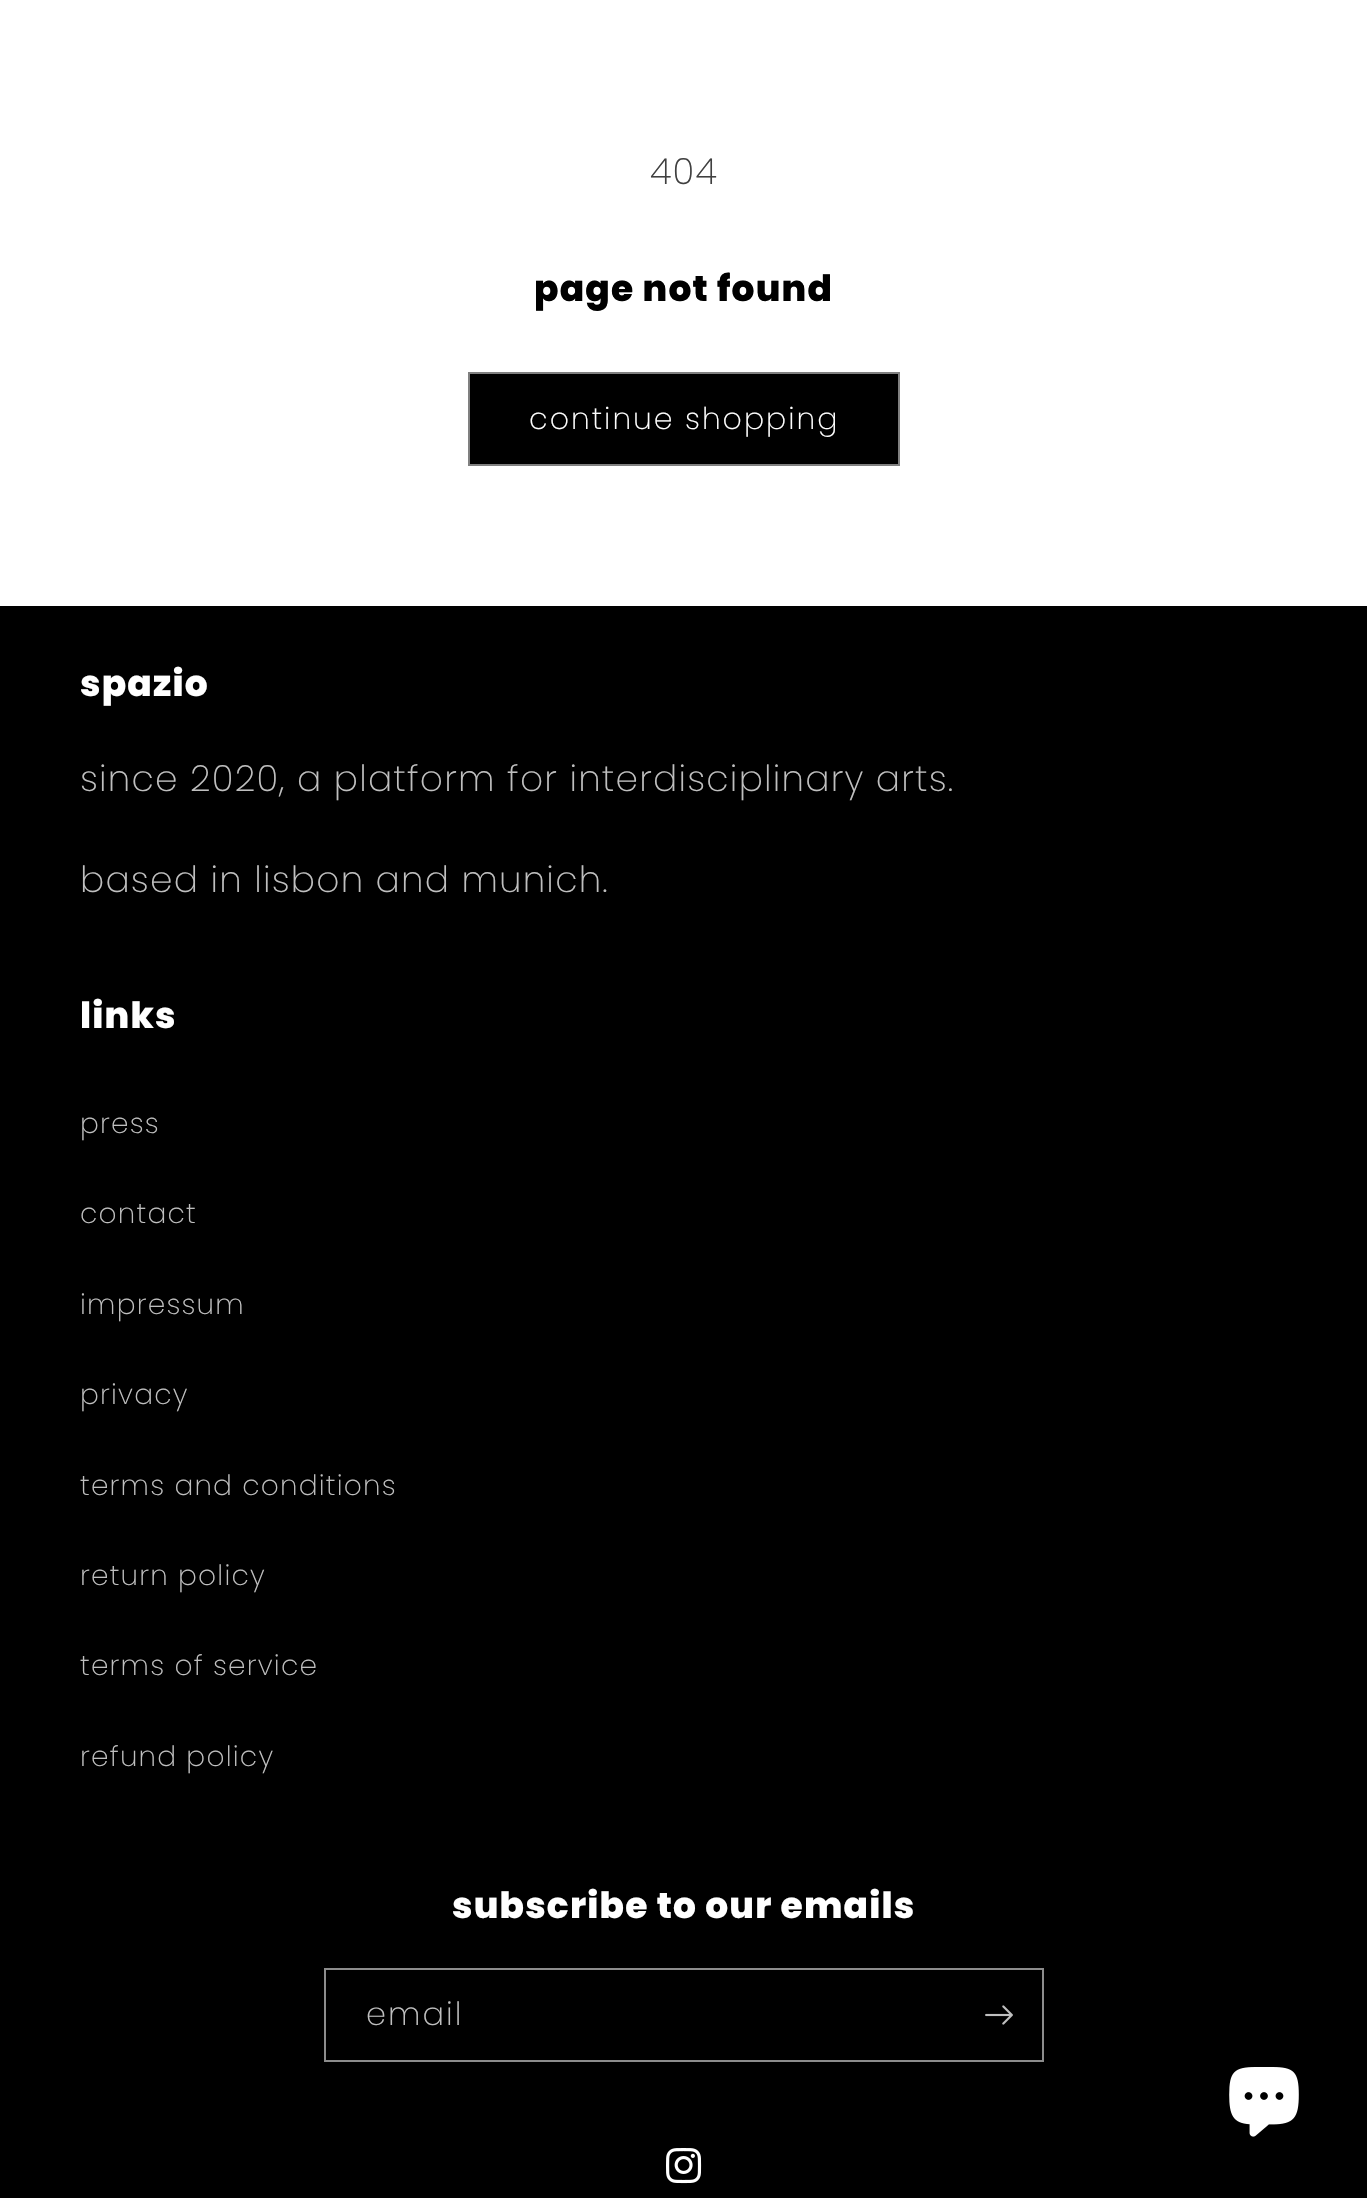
#include "include/core/SkBlurTypes.h"
#include "include/core/SkCanvas.h"
#include "include/core/SkData.h"
#include "include/core/SkFont.h"
#include "include/core/SkFontMgr.h"
#include "include/core/SkImage.h"
#include "include/core/SkMaskFilter.h"
#include "include/core/SkPaint.h"
#include "include/core/SkPathBuilder.h"
#include "include/core/SkTextBlob.h"
#include "include/effects/SkDashPathEffect.h"
#include "include/effects/SkGradientShader.h"
#include "include/utils/SkParsePath.h"

extern sk_sp<SkFontMgr> fontMgr;

void draw(SkCanvas* canvas) {
  SkPaint p;
  p.setAntiAlias(true);
  auto spacedText = [&](const char* s, float x, float y, const SkFont& font, const SkPaint& ink, float letter, float word) {
    std::vector<SkGlyphID> glyphs(font.countText(s, strlen(s), SkTextEncoding::kUTF8));
    std::vector<float> xs(glyphs.size());
    font.textToGlyphs(s, strlen(s), SkTextEncoding::kUTF8, glyphs);
    font.getXPos(glyphs, xs, x);
    float extra = 0;
    for (size_t i = 0; i < glyphs.size(); i++) {
      xs[i] += extra;
      extra += letter + word * (glyphs[i] == font.unicharToGlyph(' '));
    }
    canvas->drawTextBlob(SkTextBlob::MakeFromPosHGlyphs(glyphs, xs, y, font), 0, 0, ink);
  };
  canvas->clear(SK_ColorWHITE);
  p.setColor(SK_ColorBLACK);
  canvas->drawRect(SkRect::MakeLTRB(470, 374, 898, 464), p);
  p.setStyle(SkPaint::kStroke_Style);
  p.setStrokeWidth(2);
  p.setColor(SkColorSetRGB(128, 128, 128));
  canvas->drawRect(SkRect::MakeLTRB(469, 373, 899, 465), p);
  p.setStyle(SkPaint::kFill_Style);
  p.setColor(SK_ColorBLACK);
  canvas->drawRect(SkRect::MakeLTRB(0, 606, 1367, 2198), p);
  p.setStyle(SkPaint::kStroke_Style);
  p.setColor(SkColorSetRGB(140, 140, 140));
  canvas->drawRect(SkRect::MakeLTRB(325, 1969, 1043, 2061), p);
  canvas->drawImageRect(SkImages::DeferredFromEncodedData(SkData::MakeFromFileName("images/1.png")), SkRect::MakeLTRB(985, 2005, 1013, 2025), SkSamplingOptions());
  canvas->drawImageRect(SkImages::DeferredFromEncodedData(SkData::MakeFromFileName("images/2.png")), SkRect::MakeLTRB(666, 2148, 702, 2184), SkSamplingOptions());
  canvas->drawImageRect(SkImages::DeferredFromEncodedData(SkData::MakeFromFileName("images/3.png")), SkRect::MakeLTRB(1229, 2067, 1299, 2137), SkSamplingOptions());
  SkFont font1(fontMgr->matchFamilyStyle("Poppins", SkFontStyle(300, SkFontStyle::kNormal_Width, SkFontStyle::kUpright_Slant)), 36);
  font1.setSubpixel(true);
  p.setStyle(SkPaint::kFill_Style);
  p.setColor(SkColorSetRGB(64, 64, 64));
  spacedText("404", 650, 184, font1, p, 1.2f, 0);
  SkFont font2(fontMgr->matchFamilyStyle("Poppins", SkFontStyle(800, SkFontStyle::kNormal_Width, SkFontStyle::kUpright_Slant)), 36);
  font2.setSubpixel(true);
  p.setColor(SK_ColorBLACK);
  spacedText("page not found", 534, 301, font2, p, 1.2f, 0);
  SkFont font3(fontMgr->matchFamilyStyle("Poppins", SkFontStyle(300, SkFontStyle::kNormal_Width, SkFontStyle::kUpright_Slant)), 30);
  font3.setSubpixel(true);
  p.setColor(SK_ColorWHITE);
  spacedText("continue shopping", 529, 429, font3, p, 2, 0);
  spacedText("spazio", 80, 696, font2, p, 1.2f, 0);
  p.setColor(SkColorSetRGB(191, 191, 191));
  spacedText("since 2020, a platform for interdisciplinary arts.", 80, 791, font1, p, 1.2f, 0);
  spacedText("based in lisbon and munich.", 80, 892, font1, p, 1.2f, 0);
  p.setColor(SK_ColorWHITE);
  spacedText("links", 80, 1028, font2, p, 1.2f, 0);
  SkFont font4(fontMgr->matchFamilyStyle("Poppins", SkFontStyle(300, SkFontStyle::kNormal_Width, SkFontStyle::kUpright_Slant)), 28);
  font4.setSubpixel(true);
  p.setColor(SkColorSetRGB(191, 191, 191));
  spacedText("press", 80, 1133, font4, p, 1.2f, 0);
  spacedText("contact", 80, 1223, font4, p, 1.2f, 0);
  spacedText("impressum", 80, 1314, font4, p, 1.2f, 0);
  spacedText("privacy", 80, 1404, font4, p, 1.2f, 0);
  spacedText("terms and conditions", 80, 1495, font4, p, 1.2f, 0);
  spacedText("return policy", 80, 1585, font4, p, 1.2f, 0);
  spacedText("terms of service", 80, 1675, font4, p, 1.2f, 0);
  spacedText("refund policy", 80, 1766, font4, p, 1.2f, 0);
  p.setColor(SK_ColorWHITE);
  spacedText("subscribe to our emails", 452, 1918, font2, p, 1.2f, 0);
  SkFont font5(fontMgr->matchFamilyStyle("Poppins", SkFontStyle(300, SkFontStyle::kNormal_Width, SkFontStyle::kUpright_Slant)), 32);
  font5.setSubpixel(true);
  p.setColor(SkColorSetRGB(191, 191, 191));
  spacedText("email", 366, 2025, font5, p, 2, 0);
}
